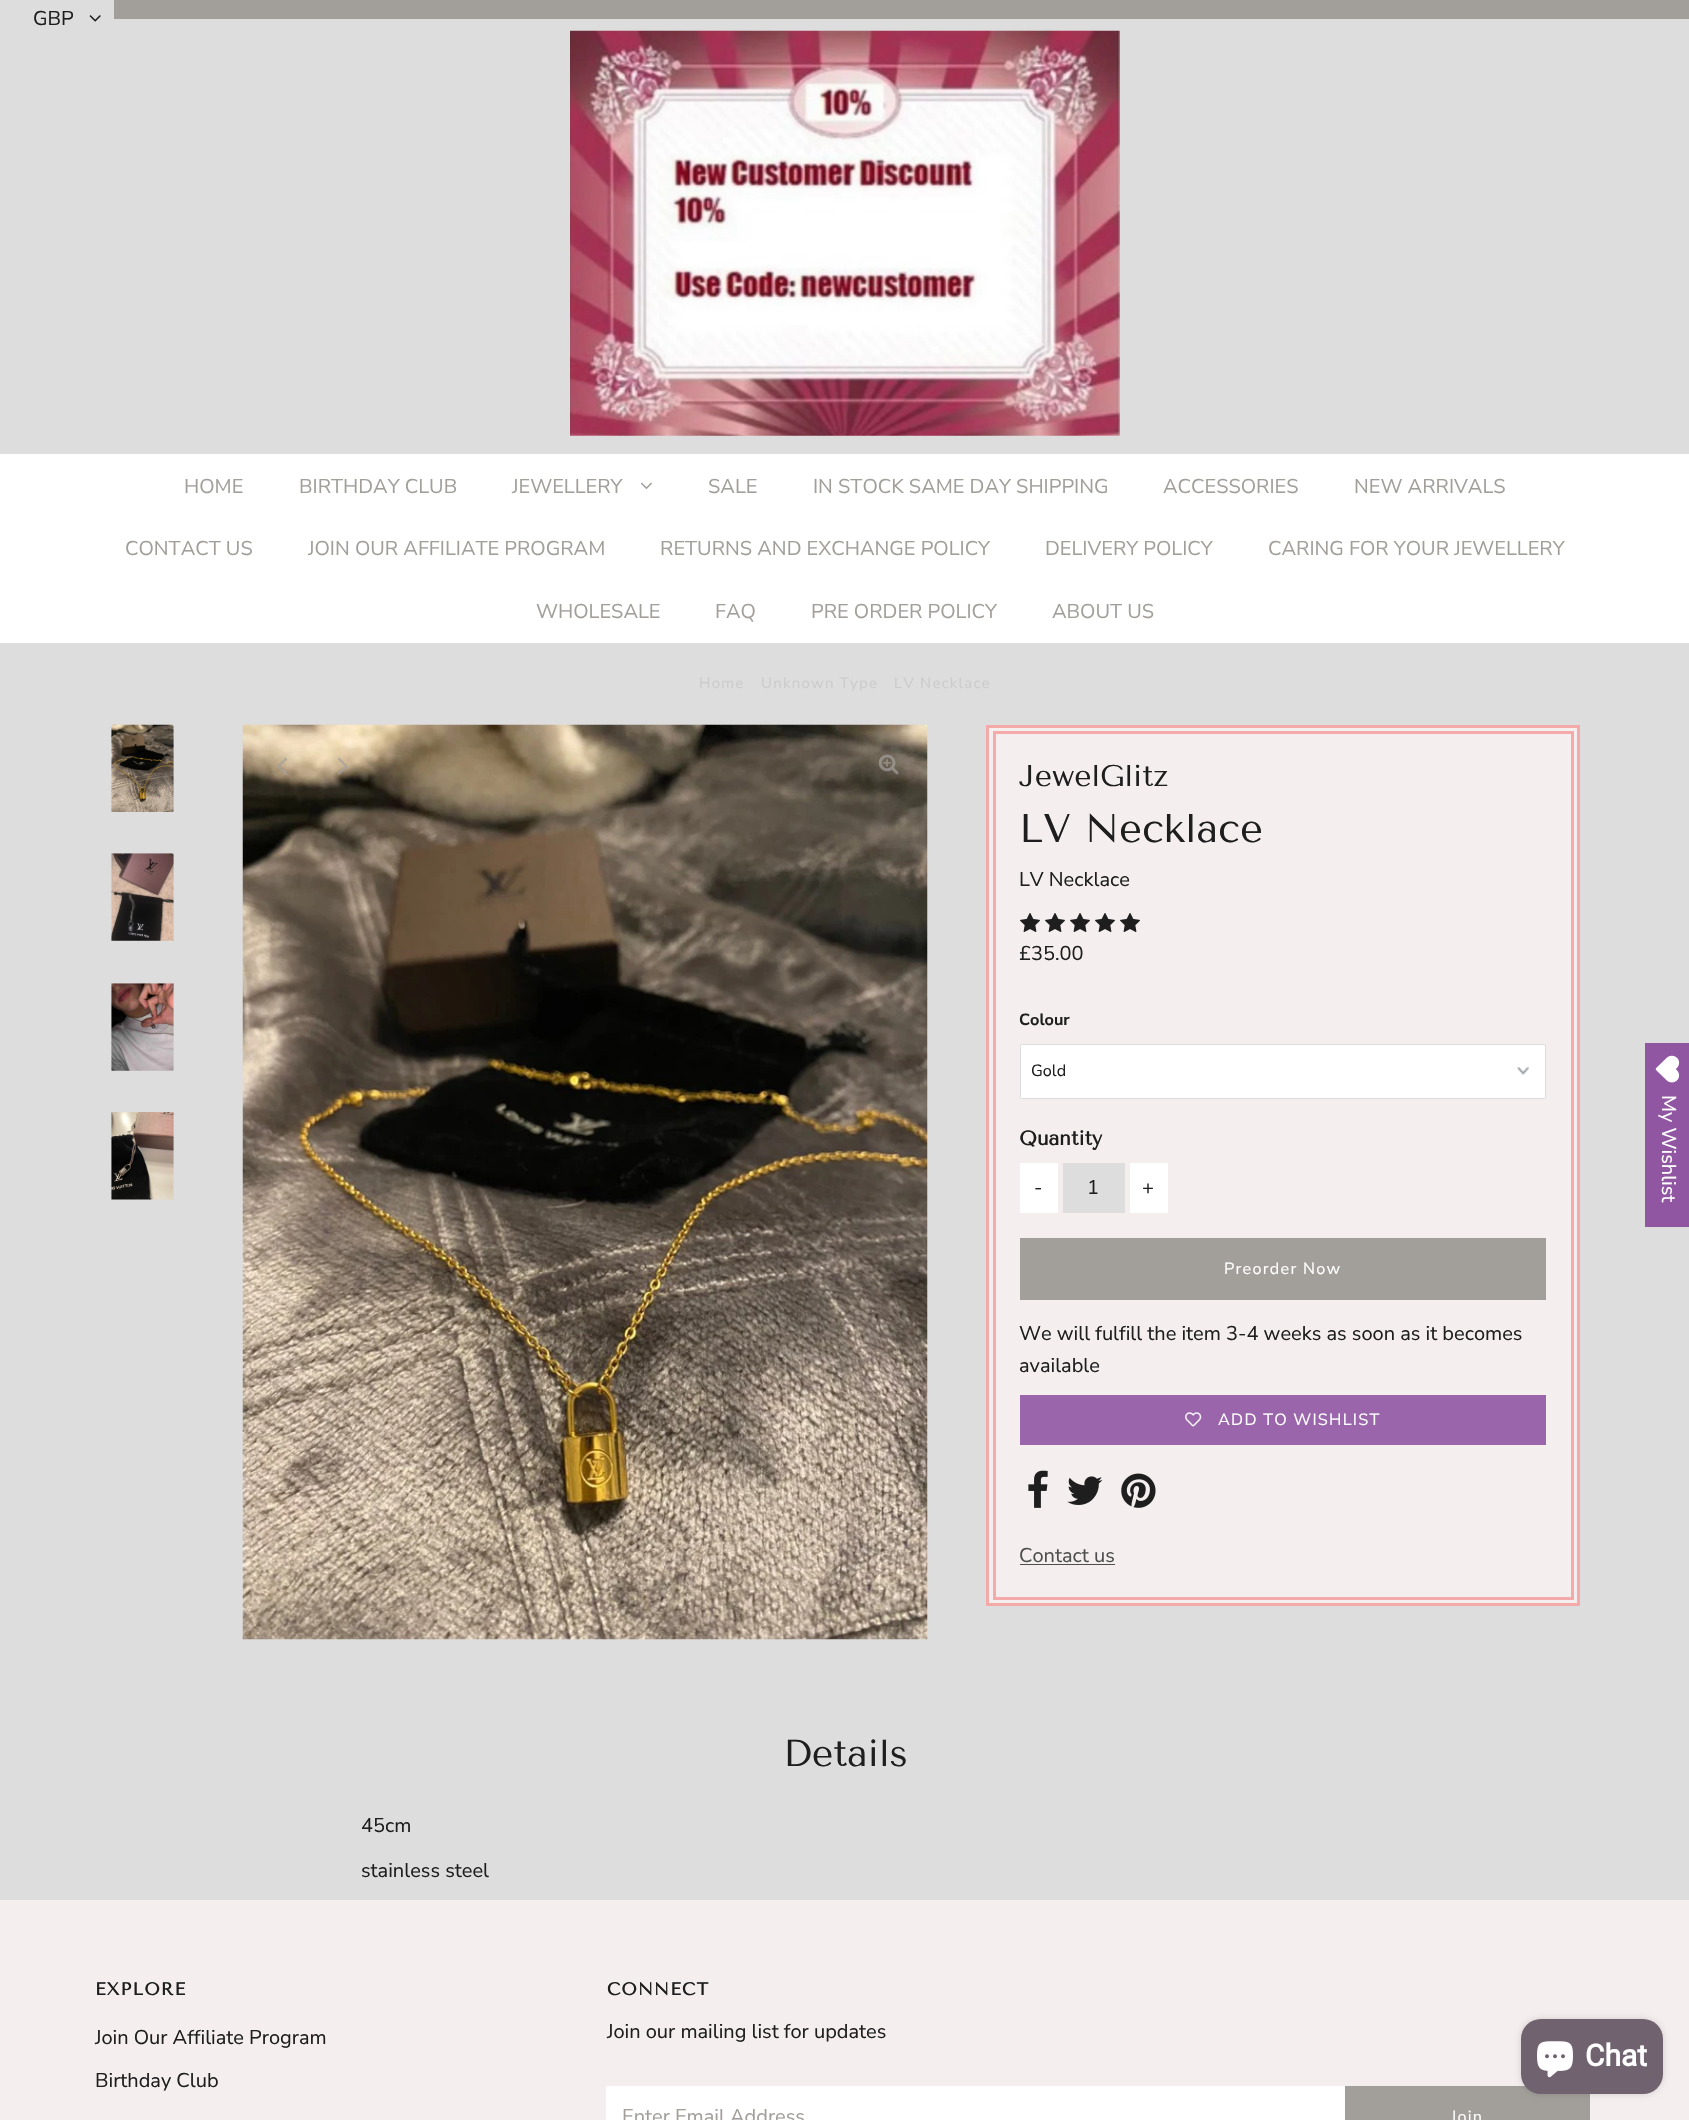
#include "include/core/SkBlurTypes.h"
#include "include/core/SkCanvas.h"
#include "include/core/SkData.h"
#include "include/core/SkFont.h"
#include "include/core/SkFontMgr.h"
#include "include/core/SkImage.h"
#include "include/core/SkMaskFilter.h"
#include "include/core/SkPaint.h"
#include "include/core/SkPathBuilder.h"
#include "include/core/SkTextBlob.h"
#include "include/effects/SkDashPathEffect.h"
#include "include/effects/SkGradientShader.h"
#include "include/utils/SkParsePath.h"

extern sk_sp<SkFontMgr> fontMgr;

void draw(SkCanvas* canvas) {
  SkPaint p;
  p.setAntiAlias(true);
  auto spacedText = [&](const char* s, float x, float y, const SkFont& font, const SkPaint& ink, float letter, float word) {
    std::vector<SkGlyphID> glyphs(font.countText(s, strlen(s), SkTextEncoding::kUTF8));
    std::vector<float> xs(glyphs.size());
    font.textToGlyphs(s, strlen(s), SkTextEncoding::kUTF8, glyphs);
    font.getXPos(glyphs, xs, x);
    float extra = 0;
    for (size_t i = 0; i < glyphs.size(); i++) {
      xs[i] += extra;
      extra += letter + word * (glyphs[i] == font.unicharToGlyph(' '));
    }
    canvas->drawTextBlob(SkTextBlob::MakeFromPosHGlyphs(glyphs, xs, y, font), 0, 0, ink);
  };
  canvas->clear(SkColorSetRGB(221, 221, 221));
  canvas->drawImageRect(SkImages::DeferredFromEncodedData(SkData::MakeFromFileName("images/1.png")), SkRect::MakeLTRB(89, 15, 101, 22), SkSamplingOptions());
  p.setColor(SkColorSetRGB(162, 159, 155));
  canvas->drawRect(SkRect::MakeLTRB(114, 0, 1689, 19), p);
  canvas->drawImageRect(SkImages::DeferredFromEncodedData(SkData::MakeFromFileName("images/2.png")), SkRect::MakeLTRB(570, 30, 1120, 436), SkSamplingOptions());
  p.setColor(SK_ColorWHITE);
  canvas->drawRect(SkRect::MakeLTRB(0, 454, 1689, 643), p);
  canvas->drawImageRect(SkImages::DeferredFromEncodedData(SkData::MakeFromFileName("images/3.png")), SkRect::MakeLTRB(640, 482, 652, 490), SkSamplingOptions());
  canvas->drawImageRect(SkImages::DeferredFromEncodedData(SkData::MakeFromFileName("images/4.png")), SkRect::MakeLTRB(111, 724, 174, 812), SkSamplingOptions());
  canvas->drawImageRect(SkImages::DeferredFromEncodedData(SkData::MakeFromFileName("images/5.png")), SkRect::MakeLTRB(111, 853, 174, 941), SkSamplingOptions());
  canvas->drawImageRect(SkImages::DeferredFromEncodedData(SkData::MakeFromFileName("images/6.png")), SkRect::MakeLTRB(111, 983, 174, 1071), SkSamplingOptions());
  canvas->drawImageRect(SkImages::DeferredFromEncodedData(SkData::MakeFromFileName("images/7.png")), SkRect::MakeLTRB(111, 1112, 174, 1200), SkSamplingOptions());
  canvas->drawImageRect(SkImages::DeferredFromEncodedData(SkData::MakeFromFileName("images/8.png")), SkRect::MakeLTRB(242, 724, 928, 1640), SkSamplingOptions());
  canvas->drawImageRect(SkImages::DeferredFromEncodedData(SkData::MakeFromFileName("images/9.png")), SkRect::MakeLTRB(878, 754, 899, 775), SkSamplingOptions());
  canvas->drawImageRect(SkImages::DeferredFromEncodedData(SkData::MakeFromFileName("images/10.png")), SkRect::MakeLTRB(277, 757, 287, 775), SkSamplingOptions());
  canvas->drawImageRect(SkImages::DeferredFromEncodedData(SkData::MakeFromFileName("images/11.png")), SkRect::MakeLTRB(337, 757, 348, 775), SkSamplingOptions());
  p.setColor(SkColorSetRGB(245, 238, 238));
  canvas->drawRect(SkRect::MakeLTRB(987.5f, 726.5f, 1578.5f, 1604.5f), p);
  p.setStyle(SkPaint::kStroke_Style);
  p.setStrokeWidth(3);
  p.setColor(SkColorSetRGB(245, 170, 170));
  canvas->drawRect(SkRect::MakeLTRB(987.5f, 726.5f, 1578.5f, 1604.5f), p);
  canvas->drawRect(SkRect::MakeLTRB(994.5f, 732.5f, 1572.5f, 1598.5f), p);
  canvas->drawImageRect(SkImages::DeferredFromEncodedData(SkData::MakeFromFileName("images/12.png")), SkRect::MakeLTRB(1020, 913, 1040, 932), SkSamplingOptions());
  canvas->drawImageRect(SkImages::DeferredFromEncodedData(SkData::MakeFromFileName("images/12.png")), SkRect::MakeLTRB(1045, 913, 1065, 932), SkSamplingOptions());
  canvas->drawImageRect(SkImages::DeferredFromEncodedData(SkData::MakeFromFileName("images/12.png")), SkRect::MakeLTRB(1070, 913, 1090, 932), SkSamplingOptions());
  canvas->drawImageRect(SkImages::DeferredFromEncodedData(SkData::MakeFromFileName("images/12.png")), SkRect::MakeLTRB(1095, 913, 1115, 932), SkSamplingOptions());
  canvas->drawImageRect(SkImages::DeferredFromEncodedData(SkData::MakeFromFileName("images/12.png")), SkRect::MakeLTRB(1120, 913, 1140, 932), SkSamplingOptions());
  p.setStyle(SkPaint::kFill_Style);
  p.setColor(SK_ColorWHITE);
  canvas->drawRoundRect(SkRect::MakeLTRB(1020, 1044, 1546, 1099), 1, 1, p);
  canvas->drawImageRect(SkImages::DeferredFromEncodedData(SkData::MakeFromFileName("images/13.png")), SkRect::MakeLTRB(1517, 1067, 1529, 1075), SkSamplingOptions());
  p.setStyle(SkPaint::kStroke_Style);
  p.setStrokeWidth(1);
  p.setColor(SkColorSetRGB(221, 221, 221));
  canvas->drawRoundRect(SkRect::MakeLTRB(1020.5f, 1044.5f, 1545.5f, 1098.5f), 0.5f, 0.5f, p);
  p.setStyle(SkPaint::kFill_Style);
  p.setColor(SK_ColorWHITE);
  canvas->drawRect(SkRect::MakeLTRB(1020, 1163, 1058, 1213), p);
  p.setColor(SkColorSetRGB(221, 221, 221));
  canvas->drawRect(SkRect::MakeLTRB(1063, 1163, 1125, 1213), p);
  p.setColor(SK_ColorWHITE);
  canvas->drawRect(SkRect::MakeLTRB(1130, 1163, 1168, 1213), p);
  p.setColor(SkColorSetRGB(162, 159, 155));
  canvas->drawRect(SkRect::MakeLTRB(1020, 1238, 1546, 1300), p);
  p.setColor(SkColorSetRGB(154, 101, 170));
  canvas->drawRect(SkRect::MakeLTRB(1020, 1395, 1546, 1445), p);
  canvas->drawImageRect(SkImages::DeferredFromEncodedData(SkData::MakeFromFileName("images/14.png")), SkRect::MakeLTRB(1185, 1412, 1202, 1427), SkSamplingOptions());
  canvas->drawImageRect(SkImages::DeferredFromEncodedData(SkData::MakeFromFileName("images/15.png")), SkRect::MakeLTRB(1028, 1470, 1048, 1508), SkSamplingOptions());
  canvas->drawImageRect(SkImages::DeferredFromEncodedData(SkData::MakeFromFileName("images/16.png")), SkRect::MakeLTRB(1067, 1476, 1103, 1505), SkSamplingOptions());
  canvas->drawImageRect(SkImages::DeferredFromEncodedData(SkData::MakeFromFileName("images/17.png")), SkRect::MakeLTRB(1121, 1473, 1156, 1508), SkSamplingOptions());
  p.setColor(SkColorSetRGB(78, 78, 78));
  canvas->drawRect(SkRect::MakeLTRB(1020, 1564, 1115, 1565), p);
  p.setColor(SkColorSetRGB(245, 238, 238));
  canvas->drawRect(SkRect::MakeLTRB(0, 1900, 1689, 2120), p);
  p.setColor(SK_ColorWHITE);
  canvas->drawRect(SkRect::MakeLTRB(606, 2086, 1345, 2120), p);
  p.setColor(SkColorSetRGB(162, 159, 155));
  canvas->drawRect(SkRect::MakeLTRB(1345, 2086, 1590, 2120), p);
  p.setColor(SkColorSetRGB(144, 86, 162));
  canvas->drawRect(SkRect::MakeLTRB(1645, 1043, 1689, 1227), p);
  canvas->drawImageRect(SkImages::DeferredFromEncodedData(SkData::MakeFromFileName("images/18.png")), SkRect::MakeLTRB(1655, 1055, 1680, 1083), SkSamplingOptions());
  p.setColor(SkColorSetARGB(38, 0, 0, 0));
  p.setMaskFilter(SkMaskFilter::MakeBlur(kNormal_SkBlurStyle, 3));
  canvas->drawRoundRect(SkRect::MakeLTRB(1521, 2019, 1663, 2094), 20, 20, p);
  p.setMaskFilter(nullptr);
  p.setColor(SkColorSetRGB(112, 98, 110));
  canvas->drawRoundRect(SkRect::MakeLTRB(1521, 2019, 1663, 2094), 20, 20, p);
  canvas->drawImageRect(SkImages::DeferredFromEncodedData(SkData::MakeFromFileName("images/19.png")), SkRect::MakeLTRB(1537, 2041, 1573, 2078), SkSamplingOptions());
  SkFont font1(fontMgr->matchFamilyStyle("Nunito Sans", SkFontStyle::Normal()), 20);
  font1.setSubpixel(true);
  p.setColor(SkColorSetRGB(30, 30, 30));
  canvas->drawString("GBP", 33, 25, font1, p);
  p.setColor(SkColorSetRGB(162, 159, 155));
  canvas->drawString("HOME", 184, 493, font1, p);
  canvas->drawString("BIRTHDAY CLUB", 299, 493, font1, p);
  canvas->drawString("JEWELLERY", 512, 493, font1, p);
  canvas->drawString("SALE", 708, 493, font1, p);
  canvas->drawString("IN STOCK SAME DAY SHIPPING", 813, 493, font1, p);
  canvas->drawString("ACCESSORIES", 1163, 493, font1, p);
  canvas->drawString("NEW ARRIVALS", 1354, 493, font1, p);
  canvas->drawString("CONTACT US", 125, 555, font1, p);
  canvas->drawString("JOIN OUR AFFILIATE PROGRAM", 308, 555, font1, p);
  canvas->drawString("RETURNS AND EXCHANGE POLICY", 660, 555, font1, p);
  canvas->drawString("DELIVERY POLICY", 1045, 555, font1, p);
  canvas->drawString("CARING FOR YOUR JEWELLERY", 1268, 555, font1, p);
  canvas->drawString("WHOLESALE", 536, 618, font1, p);
  canvas->drawString("FAQ", 715, 618, font1, p);
  canvas->drawString("PRE ORDER POLICY", 811, 618, font1, p);
  canvas->drawString("ABOUT US", 1052, 618, font1, p);
  SkFont font2(fontMgr->matchFamilyStyle("Nunito Sans", SkFontStyle::Normal()), 15);
  font2.setSubpixel(true);
  p.setColor(SkColorSetRGB(204, 204, 204));
  spacedText("Home", 699, 688, font2, p, 1.25f, 0);
  spacedText("Unknown Type", 761, 688, font2, p, 1.25f, 0);
  spacedText("LV Necklace", 894, 688, font2, p, 1.25f, 0);
  SkFont font3(fontMgr->matchFamilyStyle("Tenor Sans", SkFontStyle::Normal()), 30);
  font3.setSubpixel(true);
  p.setColor(SkColorSetRGB(30, 30, 30));
  canvas->drawString("JewelGlitz", 1019, 786, font3, p);
  SkFont font4(fontMgr->matchFamilyStyle("Tenor Sans", SkFontStyle::Normal()), 40);
  font4.setSubpixel(true);
  canvas->drawString("LV Necklace", 1019, 842, font4, p);
  canvas->drawString("LV Necklace", 1019, 886, font1, p);
  canvas->drawString("£35.00", 1019, 960, font1, p);
  SkFont font5(fontMgr->matchFamilyStyle("Nunito Sans", SkFontStyle::Bold()), 16.25f);
  font5.setSubpixel(true);
  canvas->drawString("Colour", 1019, 1025, font5, p);
  SkFont font6(fontMgr->matchFamilyStyle("Nunito Sans", SkFontStyle::Normal()), 16.25f);
  font6.setSubpixel(true);
  canvas->drawString("Gold", 1031, 1076, font6, p);
  SkFont font7(fontMgr->matchFamilyStyle("Tenor Sans", SkFontStyle::Bold()), 20);
  font7.setSubpixel(true);
  canvas->drawString("Quantity", 1019, 1145, font7, p);
  canvas->drawString("-", 1034, 1194, font1, p);
  canvas->drawString("1", 1087, 1194, font1, p);
  canvas->drawString("+", 1142, 1194, font1, p);
  p.setColor(SK_ColorWHITE);
  spacedText("Preorder Now", 1224, 1274, font6, p, 1.25f, 0);
  p.setColor(SkColorSetRGB(30, 30, 30));
  canvas->drawString("We will fulfill the item 3-4 weeks as soon as it becomes", 1019, 1340, font1, p);
  canvas->drawString("available", 1019, 1372, font1, p);
  p.setColor(SK_ColorWHITE);
  spacedText("ADD TO WISHLIST", 1218, 1425, font6, p, 1.25f, 0);
  p.setColor(SkColorSetRGB(78, 78, 78));
  canvas->drawString("Contact us", 1019, 1562, font1, p);
  SkFont font8(fontMgr->matchFamilyStyle("Tenor Sans", SkFontStyle::Normal()), 37.5f);
  font8.setSubpixel(true);
  p.setColor(SkColorSetRGB(30, 30, 30));
  canvas->drawString("Details", 783, 1766, font8, p);
  canvas->drawString("45cm", 361, 1832, font1, p);
  canvas->drawString("stainless steel", 361, 1877, font1, p);
  SkFont font9(fontMgr->matchFamilyStyle("Tenor Sans", SkFontStyle::Bold()), 17.5f);
  font9.setSubpixel(true);
  spacedText("EXPLORE", 95, 1995, font9, p, 1.25f, 0);
  canvas->drawString("Join Our Affiliate Program", 95, 2044, font1, p);
  canvas->drawString("Birthday Club", 95, 2087, font1, p);
  spacedText("CONNECT", 607, 1995, font9, p, 1.25f, 0);
  canvas->drawString("Join our mailing list for updates", 607, 2038, font1, p);
  p.setColor(SkColorSetRGB(162, 159, 155));
  canvas->drawString("Enter Email Address", 622, 2123, font1, p);
  p.setColor(SK_ColorWHITE);
  spacedText("Join", 1451, 2122, font6, p, 1.25f, 0);
  canvas->save();
  canvas->rotate(90, 1662, 1095);
  canvas->drawString("My Wishlist", 1662, 1095, font1, p);
  canvas->restore();
  SkFont font10(fontMgr->matchFamilyStyle("Roboto", SkFontStyle::Bold()), 30);
  font10.setSubpixel(true);
  canvas->drawString("Chat", 1585, 2066, font10, p);
}
